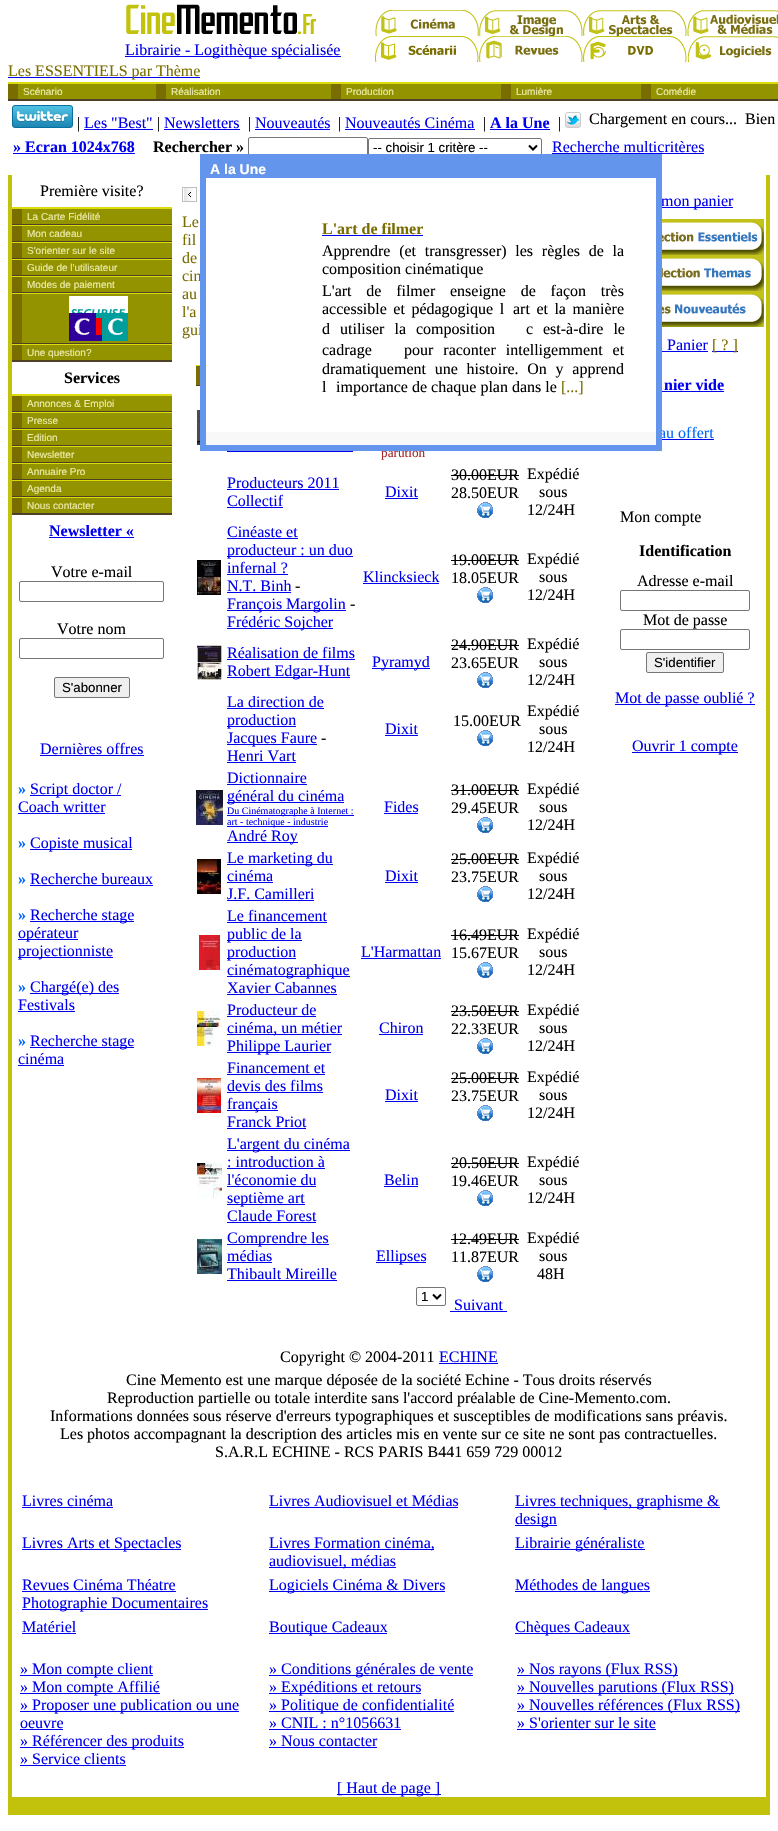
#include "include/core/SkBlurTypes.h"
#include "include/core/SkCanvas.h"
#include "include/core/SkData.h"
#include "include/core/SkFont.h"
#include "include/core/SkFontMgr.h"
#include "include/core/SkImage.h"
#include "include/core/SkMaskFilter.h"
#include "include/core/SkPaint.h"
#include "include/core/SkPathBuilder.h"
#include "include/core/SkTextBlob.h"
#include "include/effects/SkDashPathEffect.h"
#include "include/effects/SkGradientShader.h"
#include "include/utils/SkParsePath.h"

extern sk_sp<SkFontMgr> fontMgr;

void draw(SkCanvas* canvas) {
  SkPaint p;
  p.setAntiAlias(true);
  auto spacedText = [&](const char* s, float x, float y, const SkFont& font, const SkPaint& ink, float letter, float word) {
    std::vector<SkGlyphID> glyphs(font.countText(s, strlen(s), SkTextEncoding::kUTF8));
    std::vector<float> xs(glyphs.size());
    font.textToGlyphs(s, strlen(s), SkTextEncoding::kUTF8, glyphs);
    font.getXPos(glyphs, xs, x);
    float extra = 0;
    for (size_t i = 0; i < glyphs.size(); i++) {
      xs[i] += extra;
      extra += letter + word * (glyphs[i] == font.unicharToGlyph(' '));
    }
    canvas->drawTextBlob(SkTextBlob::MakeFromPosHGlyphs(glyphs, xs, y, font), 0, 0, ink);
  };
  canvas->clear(SK_ColorWHITE);
  canvas->drawImageRect(SkImages::DeferredFromEncodedData(SkData::MakeFromFileName("images/1.png")), SkRect::MakeLTRB(126, 4, 316, 34), SkSamplingOptions());
  p.setColor(SkColorSetRGB(0, 0, 238));
  canvas->drawRect(SkRect::MakeLTRB(125, 56, 341, 57), p);
  canvas->drawImageRect(SkImages::DeferredFromEncodedData(SkData::MakeFromFileName("images/2.png")), SkRect::MakeLTRB(375, 10, 479, 36), SkSamplingOptions());
  canvas->drawImageRect(SkImages::DeferredFromEncodedData(SkData::MakeFromFileName("images/3.png")), SkRect::MakeLTRB(479, 10, 583, 36), SkSamplingOptions());
  canvas->drawImageRect(SkImages::DeferredFromEncodedData(SkData::MakeFromFileName("images/4.png")), SkRect::MakeLTRB(583, 10, 687, 36), SkSamplingOptions());
  canvas->drawImageRect(SkImages::DeferredFromEncodedData(SkData::MakeFromFileName("images/5.png")), SkRect::MakeLTRB(687, 10, 778, 36), SkSamplingOptions());
  canvas->drawImageRect(SkImages::DeferredFromEncodedData(SkData::MakeFromFileName("images/6.png")), SkRect::MakeLTRB(375, 36, 479, 62), SkSamplingOptions());
  canvas->drawImageRect(SkImages::DeferredFromEncodedData(SkData::MakeFromFileName("images/7.png")), SkRect::MakeLTRB(479, 36, 583, 62), SkSamplingOptions());
  canvas->drawImageRect(SkImages::DeferredFromEncodedData(SkData::MakeFromFileName("images/8.png")), SkRect::MakeLTRB(583, 36, 687, 62), SkSamplingOptions());
  canvas->drawImageRect(SkImages::DeferredFromEncodedData(SkData::MakeFromFileName("images/9.png")), SkRect::MakeLTRB(688, 36, 778, 62), SkSamplingOptions());
  canvas->drawRect(SkRect::MakeLTRB(8, 77, 200, 78), p);
  p.setColor(SkColorSetRGB(220, 220, 13));
  canvas->drawRect(SkRect::MakeLTRB(8, 82, 778, 83), p);
  p.setColor(SkColorSetRGB(78, 65, 39));
  canvas->drawRect(SkRect::MakeLTRB(8, 100, 778, 101), p);
  p.setColor(SkColorSetRGB(220, 220, 13));
  canvas->drawRect(SkRect::MakeLTRB(8, 83, 778, 84), p);
  p.setColor(SkColorSetRGB(78, 65, 39));
  canvas->drawRect(SkRect::MakeLTRB(8, 99, 778, 100), p);
  p.setColor(SkColorSetRGB(147, 147, 0));
  canvas->drawRect(SkRect::MakeLTRB(18, 84, 156, 99), p);
  p.setColor(SkColorSetRGB(121, 109, 0));
  canvas->drawRect(SkRect::MakeLTRB(8, 84, 18, 99), p);
  p.setColor(SkColorSetRGB(147, 147, 0));
  canvas->drawRect(SkRect::MakeLTRB(166, 84, 331, 99), p);
  p.setColor(SkColorSetRGB(121, 109, 0));
  canvas->drawRect(SkRect::MakeLTRB(156, 84, 166, 99), p);
  p.setColor(SkColorSetRGB(147, 147, 0));
  canvas->drawRect(SkRect::MakeLTRB(341, 84, 501, 99), p);
  p.setColor(SkColorSetRGB(121, 109, 0));
  canvas->drawRect(SkRect::MakeLTRB(331, 84, 341, 99), p);
  p.setColor(SkColorSetRGB(147, 147, 0));
  canvas->drawRect(SkRect::MakeLTRB(511, 84, 641, 99), p);
  p.setColor(SkColorSetRGB(121, 109, 0));
  canvas->drawRect(SkRect::MakeLTRB(501, 84, 511, 99), p);
  p.setColor(SkColorSetRGB(147, 147, 0));
  canvas->drawRect(SkRect::MakeLTRB(651, 84, 778, 99), p);
  p.setColor(SkColorSetRGB(121, 109, 0));
  canvas->drawRect(SkRect::MakeLTRB(641, 84, 651, 99), p);
  canvas->drawImageRect(SkImages::DeferredFromEncodedData(SkData::MakeFromFileName("images/10.png")), SkRect::MakeLTRB(12, 105, 73, 128), SkSamplingOptions());
  p.setColor(SkColorSetRGB(0, 0, 238));
  canvas->drawRect(SkRect::MakeLTRB(84, 129, 153, 130), p);
  canvas->drawRect(SkRect::MakeLTRB(164, 129, 240, 130), p);
  canvas->drawRect(SkRect::MakeLTRB(255, 129, 330, 130), p);
  canvas->drawRect(SkRect::MakeLTRB(345, 129, 475, 130), p);
  canvas->drawRect(SkRect::MakeLTRB(490, 129, 550, 130), p);
  canvas->drawImageRect(SkImages::DeferredFromEncodedData(SkData::MakeFromFileName("images/11.png")), SkRect::MakeLTRB(565, 112, 581, 128), SkSamplingOptions());
  canvas->drawRect(SkRect::MakeLTRB(13, 153, 135, 154), p);
  p.setStyle(SkPaint::kStroke_Style);
  p.setStrokeWidth(1);
  p.setColor(SkColorSetRGB(118, 118, 118));
  canvas->drawRoundRect(SkRect::MakeLTRB(248.5f, 137.5f, 367.5f, 157.5f), 1.5f, 1.5f, p);
  canvas->drawRoundRect(SkRect::MakeLTRB(368.5f, 138.5f, 541.5f, 156.5f), 1.5f, 1.5f, p);
  p.setStrokeWidth(2);
  p.setColor(SK_ColorBLACK);
  canvas->drawPath(SkPathBuilder().moveTo(529, 145.5f).lineTo(533, 149.5f).lineTo(537, 145.5f).detach(), p);
  p.setStyle(SkPaint::kFill_Style);
  p.setColor(SkColorSetRGB(0, 0, 238));
  canvas->drawRect(SkRect::MakeLTRB(552, 153, 704, 154), p);
  p.setColor(SkColorSetRGB(194, 194, 12));
  canvas->drawRect(SkRect::MakeLTRB(8, 175, 770, 1815), p);
  p.setColor(SK_ColorWHITE);
  canvas->drawRect(SkRect::MakeLTRB(12, 175, 766, 1797), p);
  p.setColor(SkColorSetRGB(220, 220, 13));
  canvas->drawRect(SkRect::MakeLTRB(12, 207, 172, 209), p);
  p.setColor(SkColorSetRGB(78, 65, 39));
  canvas->drawRect(SkRect::MakeLTRB(12, 360, 172, 362), p);
  canvas->drawRect(SkRect::MakeLTRB(12, 224, 172, 225), p);
  p.setColor(SkColorSetRGB(147, 147, 0));
  canvas->drawRect(SkRect::MakeLTRB(22, 209, 172, 224), p);
  p.setColor(SkColorSetRGB(121, 109, 0));
  canvas->drawRect(SkRect::MakeLTRB(12, 209, 22, 224), p);
  p.setColor(SkColorSetRGB(220, 220, 13));
  canvas->drawRect(SkRect::MakeLTRB(12, 225, 172, 226), p);
  p.setColor(SkColorSetRGB(78, 65, 39));
  canvas->drawRect(SkRect::MakeLTRB(12, 241, 172, 242), p);
  p.setColor(SkColorSetRGB(147, 147, 0));
  canvas->drawRect(SkRect::MakeLTRB(22, 226, 172, 241), p);
  p.setColor(SkColorSetRGB(121, 109, 0));
  canvas->drawRect(SkRect::MakeLTRB(12, 226, 22, 241), p);
  p.setColor(SkColorSetRGB(220, 220, 13));
  canvas->drawRect(SkRect::MakeLTRB(12, 242, 172, 243), p);
  p.setColor(SkColorSetRGB(78, 65, 39));
  canvas->drawRect(SkRect::MakeLTRB(12, 258, 172, 259), p);
  p.setColor(SkColorSetRGB(147, 147, 0));
  canvas->drawRect(SkRect::MakeLTRB(22, 243, 172, 258), p);
  p.setColor(SkColorSetRGB(121, 109, 0));
  canvas->drawRect(SkRect::MakeLTRB(12, 243, 22, 258), p);
  p.setColor(SkColorSetRGB(220, 220, 13));
  canvas->drawRect(SkRect::MakeLTRB(12, 259, 172, 260), p);
  p.setColor(SkColorSetRGB(78, 65, 39));
  canvas->drawRect(SkRect::MakeLTRB(12, 275, 172, 276), p);
  p.setColor(SkColorSetRGB(147, 147, 0));
  canvas->drawRect(SkRect::MakeLTRB(22, 260, 172, 275), p);
  p.setColor(SkColorSetRGB(121, 109, 0));
  canvas->drawRect(SkRect::MakeLTRB(12, 260, 22, 275), p);
  p.setColor(SkColorSetRGB(220, 220, 13));
  canvas->drawRect(SkRect::MakeLTRB(12, 276, 172, 277), p);
  p.setColor(SkColorSetRGB(78, 65, 39));
  canvas->drawRect(SkRect::MakeLTRB(12, 292, 172, 293), p);
  p.setColor(SkColorSetRGB(147, 147, 0));
  canvas->drawRect(SkRect::MakeLTRB(22, 277, 172, 292), p);
  p.setColor(SkColorSetRGB(121, 109, 0));
  canvas->drawRect(SkRect::MakeLTRB(12, 277, 22, 292), p);
  p.setColor(SkColorSetRGB(220, 220, 13));
  canvas->drawRect(SkRect::MakeLTRB(12, 293, 172, 294), p);
  p.setColor(SkColorSetRGB(78, 65, 39));
  canvas->drawRect(SkRect::MakeLTRB(12, 343, 172, 344), p);
  p.setColor(SkColorSetRGB(147, 147, 0));
  canvas->drawRect(SkRect::MakeLTRB(22, 294, 172, 343), p);
  p.setColor(SkColorSetRGB(121, 109, 0));
  canvas->drawRect(SkRect::MakeLTRB(12, 294, 22, 343), p);
  canvas->drawImageRect(SkImages::DeferredFromEncodedData(SkData::MakeFromFileName("images/12.png")), SkRect::MakeLTRB(69, 296, 128, 341), SkSamplingOptions());
  p.setColor(SkColorSetRGB(220, 220, 13));
  canvas->drawRect(SkRect::MakeLTRB(12, 344, 172, 345), p);
  p.setColor(SkColorSetRGB(147, 147, 0));
  canvas->drawRect(SkRect::MakeLTRB(22, 345, 172, 360), p);
  p.setColor(SkColorSetRGB(121, 109, 0));
  canvas->drawRect(SkRect::MakeLTRB(12, 345, 22, 360), p);
  p.setColor(SkColorSetRGB(220, 220, 13));
  canvas->drawRect(SkRect::MakeLTRB(12, 394, 172, 396), p);
  p.setColor(SkColorSetRGB(78, 65, 39));
  canvas->drawRect(SkRect::MakeLTRB(12, 513, 172, 515), p);
  canvas->drawRect(SkRect::MakeLTRB(12, 411, 172, 412), p);
  p.setColor(SkColorSetRGB(147, 147, 0));
  canvas->drawRect(SkRect::MakeLTRB(22, 396, 172, 411), p);
  p.setColor(SkColorSetRGB(121, 109, 0));
  canvas->drawRect(SkRect::MakeLTRB(12, 396, 22, 411), p);
  p.setColor(SkColorSetRGB(220, 220, 13));
  canvas->drawRect(SkRect::MakeLTRB(12, 412, 172, 413), p);
  p.setColor(SkColorSetRGB(78, 65, 39));
  canvas->drawRect(SkRect::MakeLTRB(12, 428, 172, 429), p);
  p.setColor(SkColorSetRGB(147, 147, 0));
  canvas->drawRect(SkRect::MakeLTRB(22, 413, 172, 428), p);
  p.setColor(SkColorSetRGB(121, 109, 0));
  canvas->drawRect(SkRect::MakeLTRB(12, 413, 22, 428), p);
  p.setColor(SkColorSetRGB(220, 220, 13));
  canvas->drawRect(SkRect::MakeLTRB(12, 429, 172, 430), p);
  p.setColor(SkColorSetRGB(78, 65, 39));
  canvas->drawRect(SkRect::MakeLTRB(12, 445, 172, 446), p);
  p.setColor(SkColorSetRGB(147, 147, 0));
  canvas->drawRect(SkRect::MakeLTRB(22, 430, 172, 445), p);
  p.setColor(SkColorSetRGB(121, 109, 0));
  canvas->drawRect(SkRect::MakeLTRB(12, 430, 22, 445), p);
  p.setColor(SkColorSetRGB(220, 220, 13));
  canvas->drawRect(SkRect::MakeLTRB(12, 446, 172, 447), p);
  p.setColor(SkColorSetRGB(78, 65, 39));
  canvas->drawRect(SkRect::MakeLTRB(12, 462, 172, 463), p);
  p.setColor(SkColorSetRGB(147, 147, 0));
  canvas->drawRect(SkRect::MakeLTRB(22, 447, 172, 462), p);
  p.setColor(SkColorSetRGB(121, 109, 0));
  canvas->drawRect(SkRect::MakeLTRB(12, 447, 22, 462), p);
  p.setColor(SkColorSetRGB(220, 220, 13));
  canvas->drawRect(SkRect::MakeLTRB(12, 463, 172, 464), p);
  p.setColor(SkColorSetRGB(78, 65, 39));
  canvas->drawRect(SkRect::MakeLTRB(12, 479, 172, 480), p);
  p.setColor(SkColorSetRGB(147, 147, 0));
  canvas->drawRect(SkRect::MakeLTRB(22, 464, 172, 479), p);
  p.setColor(SkColorSetRGB(121, 109, 0));
  canvas->drawRect(SkRect::MakeLTRB(12, 464, 22, 479), p);
  p.setColor(SkColorSetRGB(220, 220, 13));
  canvas->drawRect(SkRect::MakeLTRB(12, 480, 172, 481), p);
  p.setColor(SkColorSetRGB(78, 65, 39));
  canvas->drawRect(SkRect::MakeLTRB(12, 496, 172, 497), p);
  p.setColor(SkColorSetRGB(147, 147, 0));
  canvas->drawRect(SkRect::MakeLTRB(22, 481, 172, 496), p);
  p.setColor(SkColorSetRGB(121, 109, 0));
  canvas->drawRect(SkRect::MakeLTRB(12, 481, 22, 496), p);
  p.setColor(SkColorSetRGB(220, 220, 13));
  canvas->drawRect(SkRect::MakeLTRB(12, 497, 172, 498), p);
  p.setColor(SkColorSetRGB(147, 147, 0));
  canvas->drawRect(SkRect::MakeLTRB(22, 498, 172, 513), p);
  p.setColor(SkColorSetRGB(121, 109, 0));
  canvas->drawRect(SkRect::MakeLTRB(12, 498, 22, 513), p);
  p.setColor(SkColorSetRGB(0, 0, 238));
  canvas->drawRect(SkRect::MakeLTRB(49, 537, 134, 538), p);
  p.setStyle(SkPaint::kStroke_Style);
  p.setStrokeWidth(1);
  p.setColor(SkColorSetRGB(118, 118, 118));
  canvas->drawRoundRect(SkRect::MakeLTRB(19.5f, 581.5f, 163.5f, 601.5f), 1.5f, 1.5f, p);
  canvas->drawRoundRect(SkRect::MakeLTRB(19.5f, 638.5f, 163.5f, 658.5f), 1.5f, 1.5f, p);
  p.setStyle(SkPaint::kFill_Style);
  p.setColor(SkColorSetRGB(239, 239, 239));
  canvas->drawRoundRect(SkRect::MakeLTRB(54.5f, 677.5f, 129.5f, 697.5f), 1.5f, 1.5f, p);
  p.setStyle(SkPaint::kStroke_Style);
  p.setColor(SkColorSetRGB(118, 118, 118));
  canvas->drawRoundRect(SkRect::MakeLTRB(54.5f, 677.5f, 129.5f, 697.5f), 1.5f, 1.5f, p);
  p.setStyle(SkPaint::kFill_Style);
  p.setColor(SkColorSetRGB(0, 0, 238));
  canvas->drawRect(SkRect::MakeLTRB(40, 755, 144, 756), p);
  canvas->drawRect(SkRect::MakeLTRB(30, 795, 121, 796), p);
  canvas->drawRect(SkRect::MakeLTRB(18, 813, 105, 814), p);
  canvas->drawRect(SkRect::MakeLTRB(30, 849, 132, 850), p);
  canvas->drawRect(SkRect::MakeLTRB(30, 885, 153, 886), p);
  canvas->drawRect(SkRect::MakeLTRB(30, 921, 134, 922), p);
  canvas->drawRect(SkRect::MakeLTRB(18, 939, 78, 940), p);
  canvas->drawRect(SkRect::MakeLTRB(18, 957, 113, 958), p);
  canvas->drawRect(SkRect::MakeLTRB(30, 993, 119, 994), p);
  canvas->drawRect(SkRect::MakeLTRB(18, 1011, 75, 1012), p);
  canvas->drawRect(SkRect::MakeLTRB(30, 1047, 134, 1048), p);
  canvas->drawRect(SkRect::MakeLTRB(18, 1065, 64, 1066), p);
  canvas->drawImageRect(SkImages::DeferredFromEncodedData(SkData::MakeFromFileName("images/13.png")), SkRect::MakeLTRB(182, 187, 197, 202), SkSamplingOptions());
  p.setColor(SkColorSetRGB(220, 220, 13));
  canvas->drawRect(SkRect::MakeLTRB(196, 365, 200, 366), p);
  p.setColor(SkColorSetRGB(78, 65, 39));
  canvas->drawRect(SkRect::MakeLTRB(196, 385, 200, 386), p);
  p.setColor(SkColorSetRGB(121, 109, 0));
  canvas->drawRect(SkRect::MakeLTRB(196, 366, 200, 385), p);
  canvas->drawImageRect(SkImages::DeferredFromEncodedData(SkData::MakeFromFileName("images/14.png")), SkRect::MakeLTRB(197, 410, 200, 445), SkSamplingOptions());
  p.setColor(SkColorSetRGB(0, 0, 238));
  canvas->drawRect(SkRect::MakeLTRB(227, 451, 353, 452), p);
  canvas->drawRect(SkRect::MakeLTRB(227, 489, 339, 490), p);
  canvas->drawRect(SkRect::MakeLTRB(227, 507, 283, 508), p);
  canvas->drawRect(SkRect::MakeLTRB(385, 498, 418, 499), p);
  p.setColor(SK_ColorBLACK);
  canvas->drawRect(SkRect::MakeLTRB(451, 475, 519, 476), p);
  canvas->drawImageRect(SkImages::DeferredFromEncodedData(SkData::MakeFromFileName("images/15.png")), SkRect::MakeLTRB(477, 502, 493, 518), SkSamplingOptions());
  canvas->drawImageRect(SkImages::DeferredFromEncodedData(SkData::MakeFromFileName("images/16.png")), SkRect::MakeLTRB(197, 560, 221, 595), SkSamplingOptions());
  p.setColor(SkColorSetRGB(0, 0, 238));
  canvas->drawRect(SkRect::MakeLTRB(227, 538, 298, 539), p);
  canvas->drawRect(SkRect::MakeLTRB(227, 556, 353, 557), p);
  canvas->drawRect(SkRect::MakeLTRB(227, 574, 288, 575), p);
  canvas->drawRect(SkRect::MakeLTRB(227, 592, 291, 593), p);
  canvas->drawRect(SkRect::MakeLTRB(227, 610, 346, 611), p);
  canvas->drawRect(SkRect::MakeLTRB(227, 628, 333, 629), p);
  canvas->drawRect(SkRect::MakeLTRB(363, 583, 439, 584), p);
  p.setColor(SK_ColorBLACK);
  canvas->drawRect(SkRect::MakeLTRB(451, 560, 519, 561), p);
  canvas->drawImageRect(SkImages::DeferredFromEncodedData(SkData::MakeFromFileName("images/15.png")), SkRect::MakeLTRB(477, 587, 493, 603), SkSamplingOptions());
  canvas->drawImageRect(SkImages::DeferredFromEncodedData(SkData::MakeFromFileName("images/17.png")), SkRect::MakeLTRB(197, 645, 222, 680), SkSamplingOptions());
  p.setColor(SkColorSetRGB(0, 0, 238));
  canvas->drawRect(SkRect::MakeLTRB(227, 659, 355, 660), p);
  canvas->drawRect(SkRect::MakeLTRB(227, 677, 350, 678), p);
  canvas->drawRect(SkRect::MakeLTRB(372, 668, 430, 669), p);
  p.setColor(SK_ColorBLACK);
  canvas->drawRect(SkRect::MakeLTRB(451, 645, 519, 646), p);
  canvas->drawImageRect(SkImages::DeferredFromEncodedData(SkData::MakeFromFileName("images/15.png")), SkRect::MakeLTRB(477, 672, 493, 688), SkSamplingOptions());
  p.setColor(SkColorSetRGB(0, 0, 238));
  canvas->drawRect(SkRect::MakeLTRB(227, 708, 324, 709), p);
  canvas->drawRect(SkRect::MakeLTRB(227, 726, 296, 727), p);
  canvas->drawRect(SkRect::MakeLTRB(227, 744, 317, 745), p);
  canvas->drawRect(SkRect::MakeLTRB(227, 762, 296, 763), p);
  canvas->drawImageRect(SkImages::DeferredFromEncodedData(SkData::MakeFromFileName("images/15.png")), SkRect::MakeLTRB(477, 730, 493, 746), SkSamplingOptions());
  canvas->drawRect(SkRect::MakeLTRB(385, 735, 418, 736), p);
  canvas->drawImageRect(SkImages::DeferredFromEncodedData(SkData::MakeFromFileName("images/18.png")), SkRect::MakeLTRB(196, 790, 223, 825), SkSamplingOptions());
  canvas->drawRect(SkRect::MakeLTRB(227, 784, 307, 785), p);
  canvas->drawRect(SkRect::MakeLTRB(227, 802, 344, 803), p);
  canvas->drawRect(SkRect::MakeLTRB(227, 815, 354, 816), p);
  canvas->drawRect(SkRect::MakeLTRB(227, 826, 328, 827), p);
  canvas->drawRect(SkRect::MakeLTRB(227, 842, 298, 843), p);
  canvas->drawRect(SkRect::MakeLTRB(384, 813, 418, 814), p);
  p.setColor(SK_ColorBLACK);
  canvas->drawRect(SkRect::MakeLTRB(451, 790, 519, 791), p);
  canvas->drawImageRect(SkImages::DeferredFromEncodedData(SkData::MakeFromFileName("images/15.png")), SkRect::MakeLTRB(477, 817, 493, 833), SkSamplingOptions());
  canvas->drawImageRect(SkImages::DeferredFromEncodedData(SkData::MakeFromFileName("images/19.png")), SkRect::MakeLTRB(197, 859, 221, 894), SkSamplingOptions());
  p.setColor(SkColorSetRGB(0, 0, 238));
  canvas->drawRect(SkRect::MakeLTRB(227, 864, 333, 865), p);
  canvas->drawRect(SkRect::MakeLTRB(227, 882, 273, 883), p);
  canvas->drawRect(SkRect::MakeLTRB(227, 900, 314, 901), p);
  canvas->drawRect(SkRect::MakeLTRB(385, 882, 418, 883), p);
  p.setColor(SK_ColorBLACK);
  canvas->drawRect(SkRect::MakeLTRB(451, 859, 519, 860), p);
  canvas->drawImageRect(SkImages::DeferredFromEncodedData(SkData::MakeFromFileName("images/15.png")), SkRect::MakeLTRB(477, 886, 493, 902), SkSamplingOptions());
  canvas->drawImageRect(SkImages::DeferredFromEncodedData(SkData::MakeFromFileName("images/20.png")), SkRect::MakeLTRB(199, 935, 220, 970), SkSamplingOptions());
  p.setColor(SkColorSetRGB(0, 0, 238));
  canvas->drawRect(SkRect::MakeLTRB(227, 922, 327, 923), p);
  canvas->drawRect(SkRect::MakeLTRB(227, 940, 302, 941), p);
  canvas->drawRect(SkRect::MakeLTRB(227, 958, 296, 959), p);
  canvas->drawRect(SkRect::MakeLTRB(227, 976, 350, 977), p);
  canvas->drawRect(SkRect::MakeLTRB(227, 994, 337, 995), p);
  canvas->drawRect(SkRect::MakeLTRB(361, 958, 441, 959), p);
  p.setColor(SK_ColorBLACK);
  canvas->drawRect(SkRect::MakeLTRB(451, 935, 519, 936), p);
  canvas->drawImageRect(SkImages::DeferredFromEncodedData(SkData::MakeFromFileName("images/15.png")), SkRect::MakeLTRB(477, 962, 493, 978), SkSamplingOptions());
  canvas->drawImageRect(SkImages::DeferredFromEncodedData(SkData::MakeFromFileName("images/21.png")), SkRect::MakeLTRB(197, 1011, 222, 1046), SkSamplingOptions());
  p.setColor(SkColorSetRGB(0, 0, 238));
  canvas->drawRect(SkRect::MakeLTRB(227, 1016, 316, 1017), p);
  canvas->drawRect(SkRect::MakeLTRB(227, 1034, 342, 1035), p);
  canvas->drawRect(SkRect::MakeLTRB(227, 1052, 331, 1053), p);
  canvas->drawRect(SkRect::MakeLTRB(379, 1034, 423, 1035), p);
  p.setColor(SK_ColorBLACK);
  canvas->drawRect(SkRect::MakeLTRB(451, 1011, 519, 1012), p);
  canvas->drawImageRect(SkImages::DeferredFromEncodedData(SkData::MakeFromFileName("images/15.png")), SkRect::MakeLTRB(477, 1038, 493, 1054), SkSamplingOptions());
  canvas->drawImageRect(SkImages::DeferredFromEncodedData(SkData::MakeFromFileName("images/22.png")), SkRect::MakeLTRB(197, 1078, 221, 1113), SkSamplingOptions());
  p.setColor(SkColorSetRGB(0, 0, 238));
  canvas->drawRect(SkRect::MakeLTRB(227, 1074, 325, 1075), p);
  canvas->drawRect(SkRect::MakeLTRB(227, 1092, 323, 1093), p);
  canvas->drawRect(SkRect::MakeLTRB(227, 1110, 278, 1111), p);
  canvas->drawRect(SkRect::MakeLTRB(227, 1128, 306, 1129), p);
  canvas->drawRect(SkRect::MakeLTRB(385, 1101, 418, 1102), p);
  p.setColor(SK_ColorBLACK);
  canvas->drawRect(SkRect::MakeLTRB(451, 1078, 519, 1079), p);
  canvas->drawImageRect(SkImages::DeferredFromEncodedData(SkData::MakeFromFileName("images/15.png")), SkRect::MakeLTRB(477, 1105, 493, 1121), SkSamplingOptions());
  canvas->drawImageRect(SkImages::DeferredFromEncodedData(SkData::MakeFromFileName("images/23.png")), SkRect::MakeLTRB(197, 1163, 222, 1198), SkSamplingOptions());
  p.setColor(SkColorSetRGB(0, 0, 238));
  canvas->drawRect(SkRect::MakeLTRB(227, 1150, 350, 1151), p);
  canvas->drawRect(SkRect::MakeLTRB(227, 1168, 325, 1169), p);
  canvas->drawRect(SkRect::MakeLTRB(227, 1186, 316, 1187), p);
  canvas->drawRect(SkRect::MakeLTRB(227, 1204, 305, 1205), p);
  canvas->drawRect(SkRect::MakeLTRB(227, 1222, 316, 1223), p);
  canvas->drawRect(SkRect::MakeLTRB(384, 1186, 418, 1187), p);
  p.setColor(SK_ColorBLACK);
  canvas->drawRect(SkRect::MakeLTRB(451, 1163, 519, 1164), p);
  canvas->drawImageRect(SkImages::DeferredFromEncodedData(SkData::MakeFromFileName("images/15.png")), SkRect::MakeLTRB(477, 1190, 493, 1206), SkSamplingOptions());
  canvas->drawImageRect(SkImages::DeferredFromEncodedData(SkData::MakeFromFileName("images/24.png")), SkRect::MakeLTRB(197, 1239, 222, 1274), SkSamplingOptions());
  p.setColor(SkColorSetRGB(0, 0, 238));
  canvas->drawRect(SkRect::MakeLTRB(227, 1244, 329, 1245), p);
  canvas->drawRect(SkRect::MakeLTRB(227, 1262, 272, 1263), p);
  canvas->drawRect(SkRect::MakeLTRB(227, 1280, 337, 1281), p);
  canvas->drawRect(SkRect::MakeLTRB(376, 1262, 426, 1263), p);
  p.setColor(SK_ColorBLACK);
  canvas->drawRect(SkRect::MakeLTRB(451, 1239, 519, 1240), p);
  canvas->drawImageRect(SkImages::DeferredFromEncodedData(SkData::MakeFromFileName("images/15.png")), SkRect::MakeLTRB(477, 1266, 493, 1282), SkSamplingOptions());
  p.setStyle(SkPaint::kStroke_Style);
  p.setColor(SkColorSetRGB(118, 118, 118));
  canvas->drawRoundRect(SkRect::MakeLTRB(416.5f, 1287.5f, 445.5f, 1305.5f), 1.5f, 1.5f, p);
  p.setStrokeWidth(2);
  p.setColor(SK_ColorBLACK);
  canvas->drawPath(SkPathBuilder().moveTo(433, 1294.5f).lineTo(437, 1298.5f).lineTo(441, 1294.5f).detach(), p);
  p.setStyle(SkPaint::kFill_Style);
  p.setColor(SkColorSetRGB(0, 0, 238));
  canvas->drawRect(SkRect::MakeLTRB(450, 1311, 507, 1312), p);
  canvas->drawRect(SkRect::MakeLTRB(662, 207, 733, 208), p);
  canvas->drawImageRect(SkImages::DeferredFromEncodedData(SkData::MakeFromFileName("images/25.png")), SkRect::MakeLTRB(662, 219, 764, 255), SkSamplingOptions());
  canvas->drawImageRect(SkImages::DeferredFromEncodedData(SkData::MakeFromFileName("images/26.png")), SkRect::MakeLTRB(662, 255, 764, 291), SkSamplingOptions());
  canvas->drawImageRect(SkImages::DeferredFromEncodedData(SkData::MakeFromFileName("images/27.png")), SkRect::MakeLTRB(662, 291, 764, 327), SkSamplingOptions());
  canvas->drawRect(SkRect::MakeLTRB(662, 351, 708, 352), p);
  canvas->drawRect(SkRect::MakeLTRB(712, 351, 738, 352), p);
  canvas->drawRect(SkRect::MakeLTRB(662, 391, 724, 392), p);
  canvas->drawRect(SkRect::MakeLTRB(662, 439, 714, 440), p);
  p.setStyle(SkPaint::kStroke_Style);
  p.setStrokeWidth(1);
  p.setColor(SkColorSetRGB(118, 118, 118));
  canvas->drawRoundRect(SkRect::MakeLTRB(620.5f, 590.5f, 749.5f, 610.5f), 1.5f, 1.5f, p);
  canvas->drawRoundRect(SkRect::MakeLTRB(620.5f, 629.5f, 749.5f, 649.5f), 1.5f, 1.5f, p);
  p.setStyle(SkPaint::kFill_Style);
  p.setColor(SkColorSetRGB(239, 239, 239));
  canvas->drawRoundRect(SkRect::MakeLTRB(646.5f, 652.5f, 723.5f, 672.5f), 1.5f, 1.5f, p);
  p.setStyle(SkPaint::kStroke_Style);
  p.setColor(SkColorSetRGB(118, 118, 118));
  canvas->drawRoundRect(SkRect::MakeLTRB(646.5f, 652.5f, 723.5f, 672.5f), 1.5f, 1.5f, p);
  p.setStyle(SkPaint::kFill_Style);
  p.setColor(SkColorSetRGB(0, 0, 238));
  canvas->drawRect(SkRect::MakeLTRB(615, 704, 755, 705), p);
  canvas->drawRect(SkRect::MakeLTRB(632, 752, 738, 753), p);
  canvas->drawRect(SkRect::MakeLTRB(439, 1363, 498, 1364), p);
  canvas->drawRect(SkRect::MakeLTRB(22, 1507, 113, 1508), p);
  canvas->drawRect(SkRect::MakeLTRB(269, 1507, 458, 1508), p);
  canvas->drawRect(SkRect::MakeLTRB(515, 1507, 720, 1508), p);
  canvas->drawRect(SkRect::MakeLTRB(515, 1525, 557, 1526), p);
  canvas->drawRect(SkRect::MakeLTRB(22, 1549, 181, 1550), p);
  canvas->drawRect(SkRect::MakeLTRB(269, 1549, 434, 1550), p);
  canvas->drawRect(SkRect::MakeLTRB(269, 1567, 396, 1568), p);
  canvas->drawRect(SkRect::MakeLTRB(515, 1549, 645, 1550), p);
  canvas->drawRect(SkRect::MakeLTRB(22, 1591, 176, 1592), p);
  canvas->drawRect(SkRect::MakeLTRB(22, 1609, 208, 1610), p);
  canvas->drawRect(SkRect::MakeLTRB(269, 1591, 445, 1592), p);
  canvas->drawRect(SkRect::MakeLTRB(515, 1591, 650, 1592), p);
  canvas->drawRect(SkRect::MakeLTRB(22, 1633, 76, 1634), p);
  canvas->drawRect(SkRect::MakeLTRB(269, 1633, 387, 1634), p);
  canvas->drawRect(SkRect::MakeLTRB(515, 1633, 630, 1634), p);
  canvas->drawRect(SkRect::MakeLTRB(20, 1675, 153, 1676), p);
  canvas->drawRect(SkRect::MakeLTRB(20, 1693, 160, 1694), p);
  canvas->drawRect(SkRect::MakeLTRB(20, 1711, 239, 1712), p);
  canvas->drawRect(SkRect::MakeLTRB(20, 1729, 63, 1730), p);
  canvas->drawRect(SkRect::MakeLTRB(20, 1747, 184, 1748), p);
  canvas->drawRect(SkRect::MakeLTRB(20, 1765, 126, 1766), p);
  canvas->drawRect(SkRect::MakeLTRB(269, 1675, 473, 1676), p);
  canvas->drawRect(SkRect::MakeLTRB(269, 1693, 421, 1694), p);
  canvas->drawRect(SkRect::MakeLTRB(269, 1711, 454, 1712), p);
  canvas->drawRect(SkRect::MakeLTRB(269, 1729, 401, 1730), p);
  canvas->drawRect(SkRect::MakeLTRB(269, 1747, 377, 1748), p);
  canvas->drawRect(SkRect::MakeLTRB(517, 1675, 678, 1676), p);
  canvas->drawRect(SkRect::MakeLTRB(517, 1693, 734, 1694), p);
  canvas->drawRect(SkRect::MakeLTRB(517, 1711, 740, 1712), p);
  canvas->drawRect(SkRect::MakeLTRB(517, 1729, 656, 1730), p);
  canvas->drawRect(SkRect::MakeLTRB(337, 1794, 441, 1795), p);
  SkFont font1(fontMgr->matchFamilyStyle("Liberation Serif", SkFontStyle::Normal()), 16);
  font1.setSubpixel(true);
  canvas->drawString("Librairie - Logithèque spécialisée", 125, 55, font1, p);
  p.setColor(SkColorSetRGB(121, 109, 0));
  canvas->drawString("Les ESSENTIELS par Thème", 8, 76, font1, p);
  SkFont font2(fontMgr->matchFamilyStyle("Liberation Sans", SkFontStyle::Normal()), 10);
  font2.setSubpixel(true);
  p.setColor(SkColorSetRGB(237, 235, 171));
  canvas->drawString("Scénario", 23, 95, font2, p);
  canvas->drawString("Réalisation", 171, 95, font2, p);
  canvas->drawString("Production", 346, 95, font2, p);
  canvas->drawString("Lumière", 516, 95, font2, p);
  canvas->drawString("Comédie", 656, 95, font2, p);
  p.setColor(SK_ColorBLACK);
  canvas->drawString("|", 77, 128, font1, p);
  p.setColor(SkColorSetRGB(0, 0, 238));
  canvas->drawString("Les \"Best\"", 84, 128, font1, p);
  p.setColor(SK_ColorBLACK);
  canvas->drawString("|", 157, 128, font1, p);
  p.setColor(SkColorSetRGB(0, 0, 238));
  canvas->drawString("Newsletters", 164, 128, font1, p);
  p.setColor(SK_ColorBLACK);
  canvas->drawString("|", 248, 128, font1, p);
  p.setColor(SkColorSetRGB(0, 0, 238));
  canvas->drawString("Nouveautés", 255, 128, font1, p);
  p.setColor(SK_ColorBLACK);
  canvas->drawString("|", 338, 128, font1, p);
  p.setColor(SkColorSetRGB(0, 0, 238));
  canvas->drawString("Nouveautés Cinéma", 345, 128, font1, p);
  p.setColor(SK_ColorBLACK);
  canvas->drawString("|", 483, 128, font1, p);
  SkFont font3(fontMgr->matchFamilyStyle("Liberation Serif", SkFontStyle::Bold()), 16);
  font3.setSubpixel(true);
  p.setColor(SkColorSetRGB(0, 0, 238));
  canvas->drawString("A la Une", 490, 128, font3, p);
  p.setColor(SK_ColorBLACK);
  canvas->drawString("|", 558, 128, font1, p);
  canvas->drawString("Chargement en cours...", 589, 124, font1, p);
  canvas->drawString("Bien", 745, 124, font1, p);
  p.setColor(SkColorSetRGB(0, 0, 238));
  canvas->drawString("» Ecran 1024x768", 13, 152, font3, p);
  p.setColor(SK_ColorBLACK);
  canvas->drawString("Rechercher »", 153, 152, font3, p);
  SkFont font4(fontMgr->matchFamilyStyle("Liberation Sans", SkFontStyle::Normal()), 13.25f);
  font4.setSubpixel(true);
  canvas->drawString("-- choisir 1 critère --", 373, 152, font4, p);
  p.setColor(SkColorSetRGB(0, 0, 238));
  canvas->drawString("Recherche multicritères", 552, 152, font1, p);
  p.setColor(SK_ColorBLACK);
  canvas->drawString("Première visite?", 40, 196, font1, p);
  p.setColor(SkColorSetRGB(237, 235, 171));
  canvas->drawString("La Carte Fidélité", 27, 220, font2, p);
  canvas->drawString("Mon cadeau", 27, 237, font2, p);
  canvas->drawString("S'orienter sur le site", 27, 254, font2, p);
  canvas->drawString("Guide de l'utilisateur", 27, 271, font2, p);
  canvas->drawString("Modes de paiement", 27, 288, font2, p);
  canvas->drawString("Une question?", 27, 356, font2, p);
  p.setColor(SK_ColorBLACK);
  canvas->drawString("Services", 64, 383, font3, p);
  p.setColor(SkColorSetRGB(237, 235, 171));
  canvas->drawString("Annonces & Emploi", 27, 407, font2, p);
  canvas->drawString("Presse", 27, 424, font2, p);
  canvas->drawString("Edition", 27, 441, font2, p);
  canvas->drawString("Newsletter", 27, 458, font2, p);
  canvas->drawString("Annuaire Pro", 27, 475, font2, p);
  canvas->drawString("Agenda", 27, 492, font2, p);
  canvas->drawString("Nous contacter", 27, 509, font2, p);
  p.setColor(SkColorSetRGB(0, 0, 238));
  canvas->drawString("Newsletter «", 49, 536, font3, p);
  p.setColor(SK_ColorBLACK);
  canvas->drawString("Votre e-mail", 51, 577, font1, p);
  canvas->drawString("Votre nom", 57, 634, font1, p);
  canvas->drawString("S'abonner", 62, 692, font4, p);
  p.setColor(SkColorSetRGB(0, 0, 238));
  canvas->drawString("Dernières offres", 40, 754, font1, p);
  p.setColor(SkColorSetRGB(0, 102, 255));
  canvas->drawString("»", 18, 794, font3, p);
  p.setColor(SkColorSetRGB(0, 0, 238));
  canvas->drawString("Script doctor /", 30, 794, font1, p);
  canvas->drawString("Coach writter", 18, 812, font1, p);
  p.setColor(SkColorSetRGB(0, 102, 255));
  canvas->drawString("»", 18, 848, font3, p);
  p.setColor(SkColorSetRGB(0, 0, 238));
  canvas->drawString("Copiste musical", 30, 848, font1, p);
  p.setColor(SkColorSetRGB(0, 102, 255));
  canvas->drawString("»", 18, 884, font3, p);
  p.setColor(SkColorSetRGB(0, 0, 238));
  canvas->drawString("Recherche bureaux", 30, 884, font1, p);
  p.setColor(SkColorSetRGB(0, 102, 255));
  canvas->drawString("»", 18, 920, font3, p);
  p.setColor(SkColorSetRGB(0, 0, 238));
  canvas->drawString("Recherche stage", 30, 920, font1, p);
  canvas->drawString("opérateur", 18, 938, font1, p);
  canvas->drawString("projectionniste", 18, 956, font1, p);
  p.setColor(SkColorSetRGB(0, 102, 255));
  canvas->drawString("»", 18, 992, font3, p);
  p.setColor(SkColorSetRGB(0, 0, 238));
  canvas->drawString("Chargé(e) des", 30, 992, font1, p);
  canvas->drawString("Festivals", 18, 1010, font1, p);
  p.setColor(SkColorSetRGB(0, 102, 255));
  canvas->drawString("»", 18, 1046, font3, p);
  p.setColor(SkColorSetRGB(0, 0, 238));
  canvas->drawString("Recherche stage", 30, 1046, font1, p);
  canvas->drawString("cinéma", 18, 1064, font1, p);
  p.setColor(SkColorSetRGB(121, 109, 0));
  spacedText("Le", 182, 227, font1, p, 0, 3);
  spacedText("fil", 182, 245, font1, p, 0, 3);
  spacedText("de", 182, 263, font1, p, 0, 4);
  spacedText("cin", 182, 281, font1, p, 0, 7);
  spacedText("au", 182, 299, font1, p, 0, 3);
  canvas->drawString("l'a", 182, 317, font1, p);
  canvas->drawString("gui", 182, 335, font1, p);
  SkFont font5(fontMgr->matchFamilyStyle("Liberation Serif", SkFontStyle::Normal()), 13.25f);
  font5.setSubpixel(true);
  p.setColor(SkColorSetRGB(165, 42, 42));
  canvas->drawString("parution", 381, 457, font5, p);
  p.setColor(SkColorSetRGB(0, 0, 238));
  canvas->drawString("Producteurs 2011", 227, 488, font1, p);
  canvas->drawString("Collectif", 227, 506, font1, p);
  canvas->drawString("Dixit", 385, 497, font1, p);
  p.setColor(SK_ColorBLACK);
  canvas->drawString("30.00EUR", 451, 480, font1, p);
  canvas->drawString("28.50EUR", 451, 498, font1, p);
  canvas->drawString("Expédié", 527, 479, font1, p);
  canvas->drawString("sous", 539, 497, font1, p);
  canvas->drawString("12/24H", 527, 515, font1, p);
  p.setColor(SkColorSetRGB(0, 0, 238));
  canvas->drawString("Cinéaste et", 227, 537, font1, p);
  canvas->drawString("producteur : un duo", 227, 555, font1, p);
  canvas->drawString("infernal ?", 227, 573, font1, p);
  canvas->drawString("N.T. Binh", 227, 591, font1, p);
  p.setColor(SK_ColorBLACK);
  canvas->drawString("-", 295, 591, font1, p);
  p.setColor(SkColorSetRGB(0, 0, 238));
  canvas->drawString("François Margolin", 227, 609, font1, p);
  p.setColor(SK_ColorBLACK);
  canvas->drawString("-", 350, 609, font1, p);
  p.setColor(SkColorSetRGB(0, 0, 238));
  canvas->drawString("Frédéric Sojcher", 227, 627, font1, p);
  canvas->drawString("Klincksieck", 363, 582, font1, p);
  p.setColor(SK_ColorBLACK);
  canvas->drawString("19.00EUR", 451, 565, font1, p);
  canvas->drawString("18.05EUR", 451, 583, font1, p);
  canvas->drawString("Expédié", 527, 564, font1, p);
  canvas->drawString("sous", 539, 582, font1, p);
  canvas->drawString("12/24H", 527, 600, font1, p);
  p.setColor(SkColorSetRGB(0, 0, 238));
  canvas->drawString("Réalisation de films", 227, 658, font1, p);
  canvas->drawString("Robert Edgar-Hunt", 227, 676, font1, p);
  canvas->drawString("Pyramyd", 372, 667, font1, p);
  p.setColor(SK_ColorBLACK);
  canvas->drawString("24.90EUR", 451, 650, font1, p);
  canvas->drawString("23.65EUR", 451, 668, font1, p);
  canvas->drawString("Expédié", 527, 649, font1, p);
  canvas->drawString("sous", 539, 667, font1, p);
  canvas->drawString("12/24H", 527, 685, font1, p);
  p.setColor(SkColorSetRGB(0, 0, 238));
  canvas->drawString("La direction de", 227, 707, font1, p);
  canvas->drawString("production", 227, 725, font1, p);
  canvas->drawString("Jacques Faure", 227, 743, font1, p);
  p.setColor(SK_ColorBLACK);
  canvas->drawString("-", 321, 743, font1, p);
  p.setColor(SkColorSetRGB(0, 0, 238));
  canvas->drawString("Henri Vart", 227, 761, font1, p);
  p.setColor(SK_ColorBLACK);
  canvas->drawString("15.00EUR", 453, 726, font1, p);
  canvas->drawString("Expédié", 527, 716, font1, p);
  canvas->drawString("sous", 539, 734, font1, p);
  canvas->drawString("12/24H", 527, 752, font1, p);
  p.setColor(SkColorSetRGB(0, 0, 238));
  canvas->drawString("Dixit", 385, 734, font1, p);
  canvas->drawString("Dictionnaire", 227, 783, font1, p);
  canvas->drawString("général du cinéma", 227, 801, font1, p);
  SkFont font6(fontMgr->matchFamilyStyle("Liberation Serif", SkFontStyle::Normal()), 10);
  font6.setSubpixel(true);
  canvas->drawString("Du Cinématographe à Internet :", 227, 814, font6, p);
  canvas->drawString("art - technique - industrie", 227, 825, font6, p);
  canvas->drawString("André Roy", 227, 841, font1, p);
  canvas->drawString("Fides", 384, 812, font1, p);
  p.setColor(SK_ColorBLACK);
  canvas->drawString("31.00EUR", 451, 795, font1, p);
  canvas->drawString("29.45EUR", 451, 813, font1, p);
  canvas->drawString("Expédié", 527, 794, font1, p);
  canvas->drawString("sous", 539, 812, font1, p);
  canvas->drawString("12/24H", 527, 830, font1, p);
  p.setColor(SkColorSetRGB(0, 0, 238));
  canvas->drawString("Le marketing du", 227, 863, font1, p);
  canvas->drawString("cinéma", 227, 881, font1, p);
  canvas->drawString("J.F. Camilleri", 227, 899, font1, p);
  canvas->drawString("Dixit", 385, 881, font1, p);
  p.setColor(SK_ColorBLACK);
  canvas->drawString("25.00EUR", 451, 864, font1, p);
  canvas->drawString("23.75EUR", 451, 882, font1, p);
  canvas->drawString("Expédié", 527, 863, font1, p);
  canvas->drawString("sous", 539, 881, font1, p);
  canvas->drawString("12/24H", 527, 899, font1, p);
  p.setColor(SkColorSetRGB(0, 0, 238));
  canvas->drawString("Le financement", 227, 921, font1, p);
  canvas->drawString("public de la", 227, 939, font1, p);
  canvas->drawString("production", 227, 957, font1, p);
  canvas->drawString("cinématographique", 227, 975, font1, p);
  canvas->drawString("Xavier Cabannes", 227, 993, font1, p);
  canvas->drawString("L'Harmattan", 361, 957, font1, p);
  p.setColor(SK_ColorBLACK);
  canvas->drawString("16.49EUR", 451, 940, font1, p);
  canvas->drawString("15.67EUR", 451, 958, font1, p);
  canvas->drawString("Expédié", 527, 939, font1, p);
  canvas->drawString("sous", 539, 957, font1, p);
  canvas->drawString("12/24H", 527, 975, font1, p);
  p.setColor(SkColorSetRGB(0, 0, 238));
  canvas->drawString("Producteur de", 227, 1015, font1, p);
  canvas->drawString("cinéma, un métier", 227, 1033, font1, p);
  canvas->drawString("Philippe Laurier", 227, 1051, font1, p);
  canvas->drawString("Chiron", 379, 1033, font1, p);
  p.setColor(SK_ColorBLACK);
  canvas->drawString("23.50EUR", 451, 1016, font1, p);
  canvas->drawString("22.33EUR", 451, 1034, font1, p);
  canvas->drawString("Expédié", 527, 1015, font1, p);
  canvas->drawString("sous", 539, 1033, font1, p);
  canvas->drawString("12/24H", 527, 1051, font1, p);
  p.setColor(SkColorSetRGB(0, 0, 238));
  canvas->drawString("Financement et", 227, 1073, font1, p);
  canvas->drawString("devis des films", 227, 1091, font1, p);
  canvas->drawString("français", 227, 1109, font1, p);
  canvas->drawString("Franck Priot", 227, 1127, font1, p);
  canvas->drawString("Dixit", 385, 1100, font1, p);
  p.setColor(SK_ColorBLACK);
  canvas->drawString("25.00EUR", 451, 1083, font1, p);
  canvas->drawString("23.75EUR", 451, 1101, font1, p);
  canvas->drawString("Expédié", 527, 1082, font1, p);
  canvas->drawString("sous", 539, 1100, font1, p);
  canvas->drawString("12/24H", 527, 1118, font1, p);
  p.setColor(SkColorSetRGB(0, 0, 238));
  canvas->drawString("L'argent du cinéma", 227, 1149, font1, p);
  canvas->drawString(": introduction à", 227, 1167, font1, p);
  canvas->drawString("l'économie du", 227, 1185, font1, p);
  canvas->drawString("septième art", 227, 1203, font1, p);
  canvas->drawString("Claude Forest", 227, 1221, font1, p);
  canvas->drawString("Belin", 384, 1185, font1, p);
  p.setColor(SK_ColorBLACK);
  canvas->drawString("20.50EUR", 451, 1168, font1, p);
  canvas->drawString("19.46EUR", 451, 1186, font1, p);
  canvas->drawString("Expédié", 527, 1167, font1, p);
  canvas->drawString("sous", 539, 1185, font1, p);
  canvas->drawString("12/24H", 527, 1203, font1, p);
  p.setColor(SkColorSetRGB(0, 0, 238));
  canvas->drawString("Comprendre les", 227, 1243, font1, p);
  canvas->drawString("médias", 227, 1261, font1, p);
  canvas->drawString("Thibault Mireille", 227, 1279, font1, p);
  canvas->drawString("Ellipses", 376, 1261, font1, p);
  p.setColor(SK_ColorBLACK);
  canvas->drawString("12.49EUR", 451, 1244, font1, p);
  canvas->drawString("11.87EUR", 451, 1262, font1, p);
  canvas->drawString("Expédié", 527, 1243, font1, p);
  canvas->drawString("sous", 539, 1261, font1, p);
  canvas->drawString("48H", 537, 1279, font1, p);
  canvas->drawString("1", 421, 1301, font4, p);
  p.setColor(SkColorSetRGB(0, 0, 238));
  canvas->drawString("Suivant", 454, 1310, font1, p);
  canvas->drawString("mon panier", 661, 206, font1, p);
  canvas->drawString("Panier", 667, 350, font1, p);
  p.setColor(SkColorSetRGB(121, 109, 0));
  canvas->drawString("[ ? ]", 712, 350, font1, p);
  p.setColor(SkColorSetRGB(0, 0, 238));
  canvas->drawString("nier vide", 664, 390, font3, p);
  p.setColor(SkColorSetRGB(0, 102, 255));
  canvas->drawString("au offert", 659, 438, font1, p);
  p.setStyle(SkPaint::kStroke_Style);
  p.setStrokeWidth(6);
  p.setColor(SkColorSetRGB(100, 149, 237));
  canvas->drawRect(SkRect::MakeLTRB(203, 157, 659, 448), p);
  p.setStyle(SkPaint::kFill_Style);
  p.setColor(SkColorSetRGB(121, 109, 0));
  canvas->drawString("[...]", 561, 392, font1, p);
  p.setColor(SK_ColorBLACK);
  canvas->drawString("importance de chaque plan dans le", 336, 392, font1, p);
  canvas->drawString("l", 322, 392, font1, p);
  spacedText("dramatiquement une histoire. On y apprend", 322, 374, font1, p, 0, 4.75f);
  spacedText("pour raconter intelligemment et", 404, 355, font1, p, 0, 6);
  canvas->drawString("cadrage", 322, 355, font1, p);
  spacedText("est-à-dire le", 543, 334, font1, p, 0, 6);
  canvas->drawString("c", 526, 334, font1, p);
  spacedText("utiliser la composition", 340, 334, font1, p, 0, 6);
  canvas->drawString("d", 322, 334, font1, p);
  spacedText("art et la manière", 513, 314, font1, p, 0, 2.5f);
  spacedText("accessible et pédagogique l", 322, 314, font1, p, 0, 2.5f);
  spacedText("L'art de filmer enseigne de façon très", 322, 296, font1, p, 0, 10.75f);
  canvas->drawString("composition cinématique", 322, 274, font1, p);
  spacedText("Apprendre (et transgresser) les règles de la", 322, 256, font1, p, 0, 4.75f);
  p.setColor(SkColorSetRGB(121, 109, 0));
  canvas->drawString("L'art de filmer", 322, 234, font3, p);
  p.setColor(SkColorSetRGB(0, 0, 238));
  canvas->drawRect(SkRect::MakeLTRB(322, 235, 423, 236), p);
  p.setColor(SkColorSetRGB(100, 149, 237));
  canvas->drawRect(SkRect::MakeLTRB(206, 160, 656, 178), p);
  SkFont font7(fontMgr->matchFamilyStyle("Liberation Sans", SkFontStyle::Bold()), 14);
  font7.setSubpixel(true);
  p.setColor(SK_ColorWHITE);
  canvas->drawString("A la Une", 210, 174, font7, p);
  p.setColor(SkColorSetRGB(248, 248, 248));
  canvas->drawRect(SkRect::MakeLTRB(206, 432, 656, 445), p);
  p.setColor(SK_ColorBLACK);
  canvas->drawString("Mon compte", 620, 522, font1, p);
  canvas->drawString("Identification", 639, 556, font3, p);
  canvas->drawString("Adresse e-mail", 637, 586, font1, p);
  canvas->drawString("Mot de passe", 643, 625, font1, p);
  canvas->drawString("S'identifier", 654, 667, font4, p);
  p.setColor(SkColorSetRGB(0, 0, 238));
  canvas->drawString("Mot de passe oublié ?", 615, 703, font1, p);
  canvas->drawString("Ouvrir 1 compte", 632, 751, font1, p);
  p.setColor(SK_ColorBLACK);
  canvas->drawString("Copyright © 2004-2011", 280, 1362, font1, p);
  p.setColor(SkColorSetRGB(0, 0, 238));
  canvas->drawString("ECHINE", 439, 1362, font1, p);
  p.setColor(SK_ColorBLACK);
  canvas->drawString("Cine Memento est une marque déposée de la société Echine - Tous droits réservés", 126, 1385, font1, p);
  canvas->drawString("Reproduction partielle ou totale interdite sans l'accord préalable de Cine-Memento.com.", 107, 1403, font1, p);
  canvas->drawString("Informations données sous réserve d'erreurs typographiques et susceptibles de modifications sans préavis.", 50, 1421, font1, p);
  canvas->drawString("Les photos accompagnant la description des articles mis en vente sur ce site ne sont pas contractuelles.", 60, 1439, font1, p);
  canvas->drawString("S.A.R.L ECHINE - RCS PARIS B441 659 729 00012", 215, 1457, font1, p);
  p.setColor(SkColorSetRGB(0, 0, 238));
  canvas->drawString("Livres cinéma", 22, 1506, font1, p);
  canvas->drawString("Livres Audiovisuel et Médias", 269, 1506, font1, p);
  canvas->drawString("Livres techniques, graphisme &", 515, 1506, font1, p);
  canvas->drawString("design", 515, 1524, font1, p);
  canvas->drawString("Livres Arts et Spectacles", 22, 1548, font1, p);
  canvas->drawString("Livres Formation cinéma,", 269, 1548, font1, p);
  canvas->drawString("audiovisuel, médias", 269, 1566, font1, p);
  canvas->drawString("Librairie généraliste", 515, 1548, font1, p);
  canvas->drawString("Revues Cinéma Théatre", 22, 1590, font1, p);
  canvas->drawString("Photographie Documentaires", 22, 1608, font1, p);
  canvas->drawString("Logiciels Cinéma & Divers", 269, 1590, font1, p);
  canvas->drawString("Méthodes de langues", 515, 1590, font1, p);
  canvas->drawString("Matériel", 22, 1632, font1, p);
  canvas->drawString("Boutique Cadeaux", 269, 1632, font1, p);
  canvas->drawString("Chèques Cadeaux", 515, 1632, font1, p);
  canvas->drawString("» Mon compte client", 20, 1674, font1, p);
  canvas->drawString("» Mon compte Affilié", 20, 1692, font1, p);
  canvas->drawString("» Proposer une publication ou une", 20, 1710, font1, p);
  canvas->drawString("oeuvre", 20, 1728, font1, p);
  canvas->drawString("» Référencer des produits", 20, 1746, font1, p);
  canvas->drawString("» Service clients", 20, 1764, font1, p);
  canvas->drawString("» Conditions générales de vente", 269, 1674, font1, p);
  canvas->drawString("» Expéditions et retours", 269, 1692, font1, p);
  canvas->drawString("» Politique de confidentialité", 269, 1710, font1, p);
  canvas->drawString("» CNIL : n°1056631", 269, 1728, font1, p);
  canvas->drawString("» Nous contacter", 269, 1746, font1, p);
  canvas->drawString("» Nos rayons (Flux RSS)", 517, 1674, font1, p);
  canvas->drawString("» Nouvelles parutions (Flux RSS)", 517, 1692, font1, p);
  canvas->drawString("» Nouvelles références (Flux RSS)", 517, 1710, font1, p);
  canvas->drawString("» S'orienter sur le site", 517, 1728, font1, p);
  canvas->drawString("[ Haut de page ]", 337, 1793, font1, p);
}
